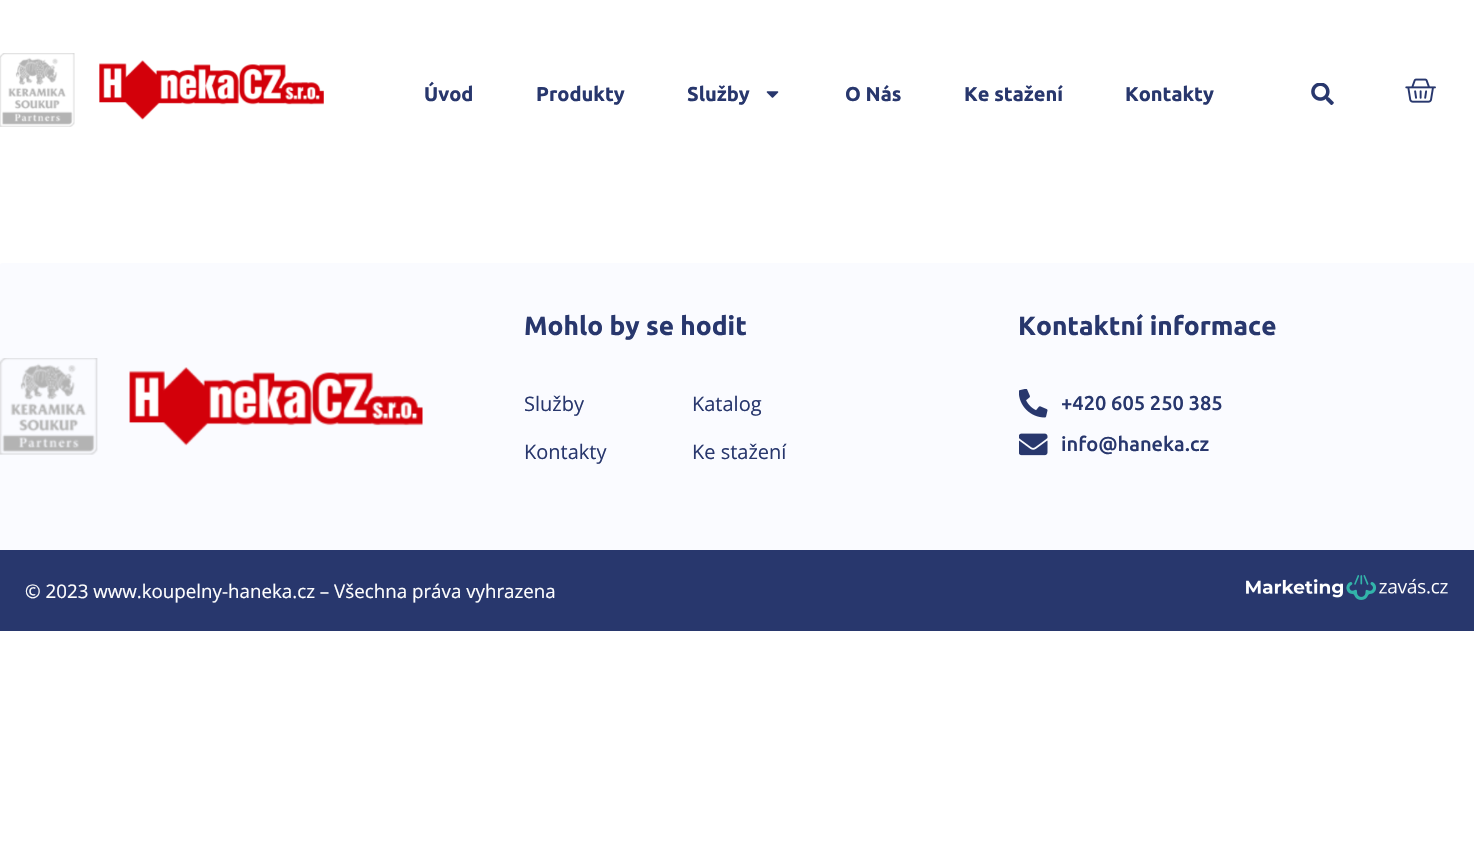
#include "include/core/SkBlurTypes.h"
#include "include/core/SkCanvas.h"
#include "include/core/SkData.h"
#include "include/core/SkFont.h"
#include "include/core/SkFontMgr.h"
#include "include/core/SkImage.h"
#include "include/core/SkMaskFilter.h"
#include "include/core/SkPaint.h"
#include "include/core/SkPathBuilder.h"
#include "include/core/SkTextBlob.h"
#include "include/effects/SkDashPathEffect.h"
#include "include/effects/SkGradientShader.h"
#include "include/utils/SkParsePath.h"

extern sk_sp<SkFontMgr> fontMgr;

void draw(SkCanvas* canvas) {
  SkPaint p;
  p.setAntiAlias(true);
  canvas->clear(SK_ColorWHITE);
  canvas->drawImageRect(SkImages::DeferredFromEncodedData(SkData::MakeFromFileName("images/1.png")), SkRect::MakeLTRB(0, 53, 324, 127), SkSamplingOptions());
  canvas->drawImageRect(SkImages::DeferredFromEncodedData(SkData::MakeFromFileName("images/2.png")), SkRect::MakeLTRB(766, 91, 779, 98), SkSamplingOptions());
  canvas->drawImageRect(SkImages::DeferredFromEncodedData(SkData::MakeFromFileName("images/3.png")), SkRect::MakeLTRB(1311, 83, 1334, 105), SkSamplingOptions());
  canvas->drawImageRect(SkImages::DeferredFromEncodedData(SkData::MakeFromFileName("images/4.png")), SkRect::MakeLTRB(1405, 78, 1436, 103), SkSamplingOptions());
  p.setColor(SkColorSetRGB(250, 251, 255));
  canvas->drawPath(SkPathBuilder().moveTo(2.5f, 263).lineTo(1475, 263).lineTo(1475, 550).lineTo(0, 550).lineTo(0, 265.5f).cubicTo(0, 264, 1, 263, 2.5f, 263).close().detach(), p);
  canvas->drawImageRect(SkImages::DeferredFromEncodedData(SkData::MakeFromFileName("images/5.png")), SkRect::MakeLTRB(0, 358, 423, 455), SkSamplingOptions());
  canvas->drawImageRect(SkImages::DeferredFromEncodedData(SkData::MakeFromFileName("images/6.png")), SkRect::MakeLTRB(1019, 389, 1048, 418), SkSamplingOptions());
  canvas->drawImageRect(SkImages::DeferredFromEncodedData(SkData::MakeFromFileName("images/7.png")), SkRect::MakeLTRB(1019, 433, 1048, 456), SkSamplingOptions());
  p.setColor(SkColorSetRGB(40, 55, 109));
  canvas->drawRect(SkRect::MakeLTRB(0, 550, 1474, 631), p);
  canvas->drawImageRect(SkImages::DeferredFromEncodedData(SkData::MakeFromFileName("images/8.png")), SkRect::MakeLTRB(1246, 575, 1448, 600), SkSamplingOptions());
  SkFont font1(fontMgr->matchFamilyStyle("Ubuntu", SkFontStyle::Bold()), 20);
  font1.setSubpixel(true);
  canvas->drawString("Úvod", 424, 101, font1, p);
  canvas->drawString("Produkty", 536, 101, font1, p);
  canvas->drawString("Služby", 687, 101, font1, p);
  canvas->drawString("O Nás", 845, 101, font1, p);
  canvas->drawString("Ke stažení", 964, 101, font1, p);
  canvas->drawString("Kontakty", 1125, 101, font1, p);
  SkFont font2(fontMgr->matchFamilyStyle("Ubuntu", SkFontStyle::Bold()), 26.25f);
  font2.setSubpixel(true);
  canvas->drawString("Mohlo by se hodit", 524, 335, font2, p);
  SkFont font3(fontMgr->matchFamilyStyle("Open Sans", SkFontStyle::Normal()), 20);
  font3.setSubpixel(true);
  canvas->drawString("Služby", 524, 411, font3, p);
  canvas->drawString("Kontakty", 524, 459, font3, p);
  canvas->drawString("Katalog", 692, 411, font3, p);
  canvas->drawString("Ke stažení", 692, 459, font3, p);
  canvas->drawString("Kontaktní informace", 1018, 335, font2, p);
  SkFont font4(fontMgr->matchFamilyStyle("Ubuntu", SkFontStyle(500, SkFontStyle::kNormal_Width, SkFontStyle::kUpright_Slant)), 20);
  font4.setSubpixel(true);
  canvas->drawString("+420 605 250 385", 1061, 410, font4, p);
  canvas->drawString("info@haneka.cz", 1061, 451, font4, p);
  SkFont font5(fontMgr->matchFamilyStyle("Open Sans", SkFontStyle::Normal()), 18.75f);
  font5.setSubpixel(true);
  p.setColor(SK_ColorWHITE);
  canvas->drawString("© 2023 www.koupelny-haneka.cz – Všechna práva vyhrazena", 25, 598, font5, p);
}
